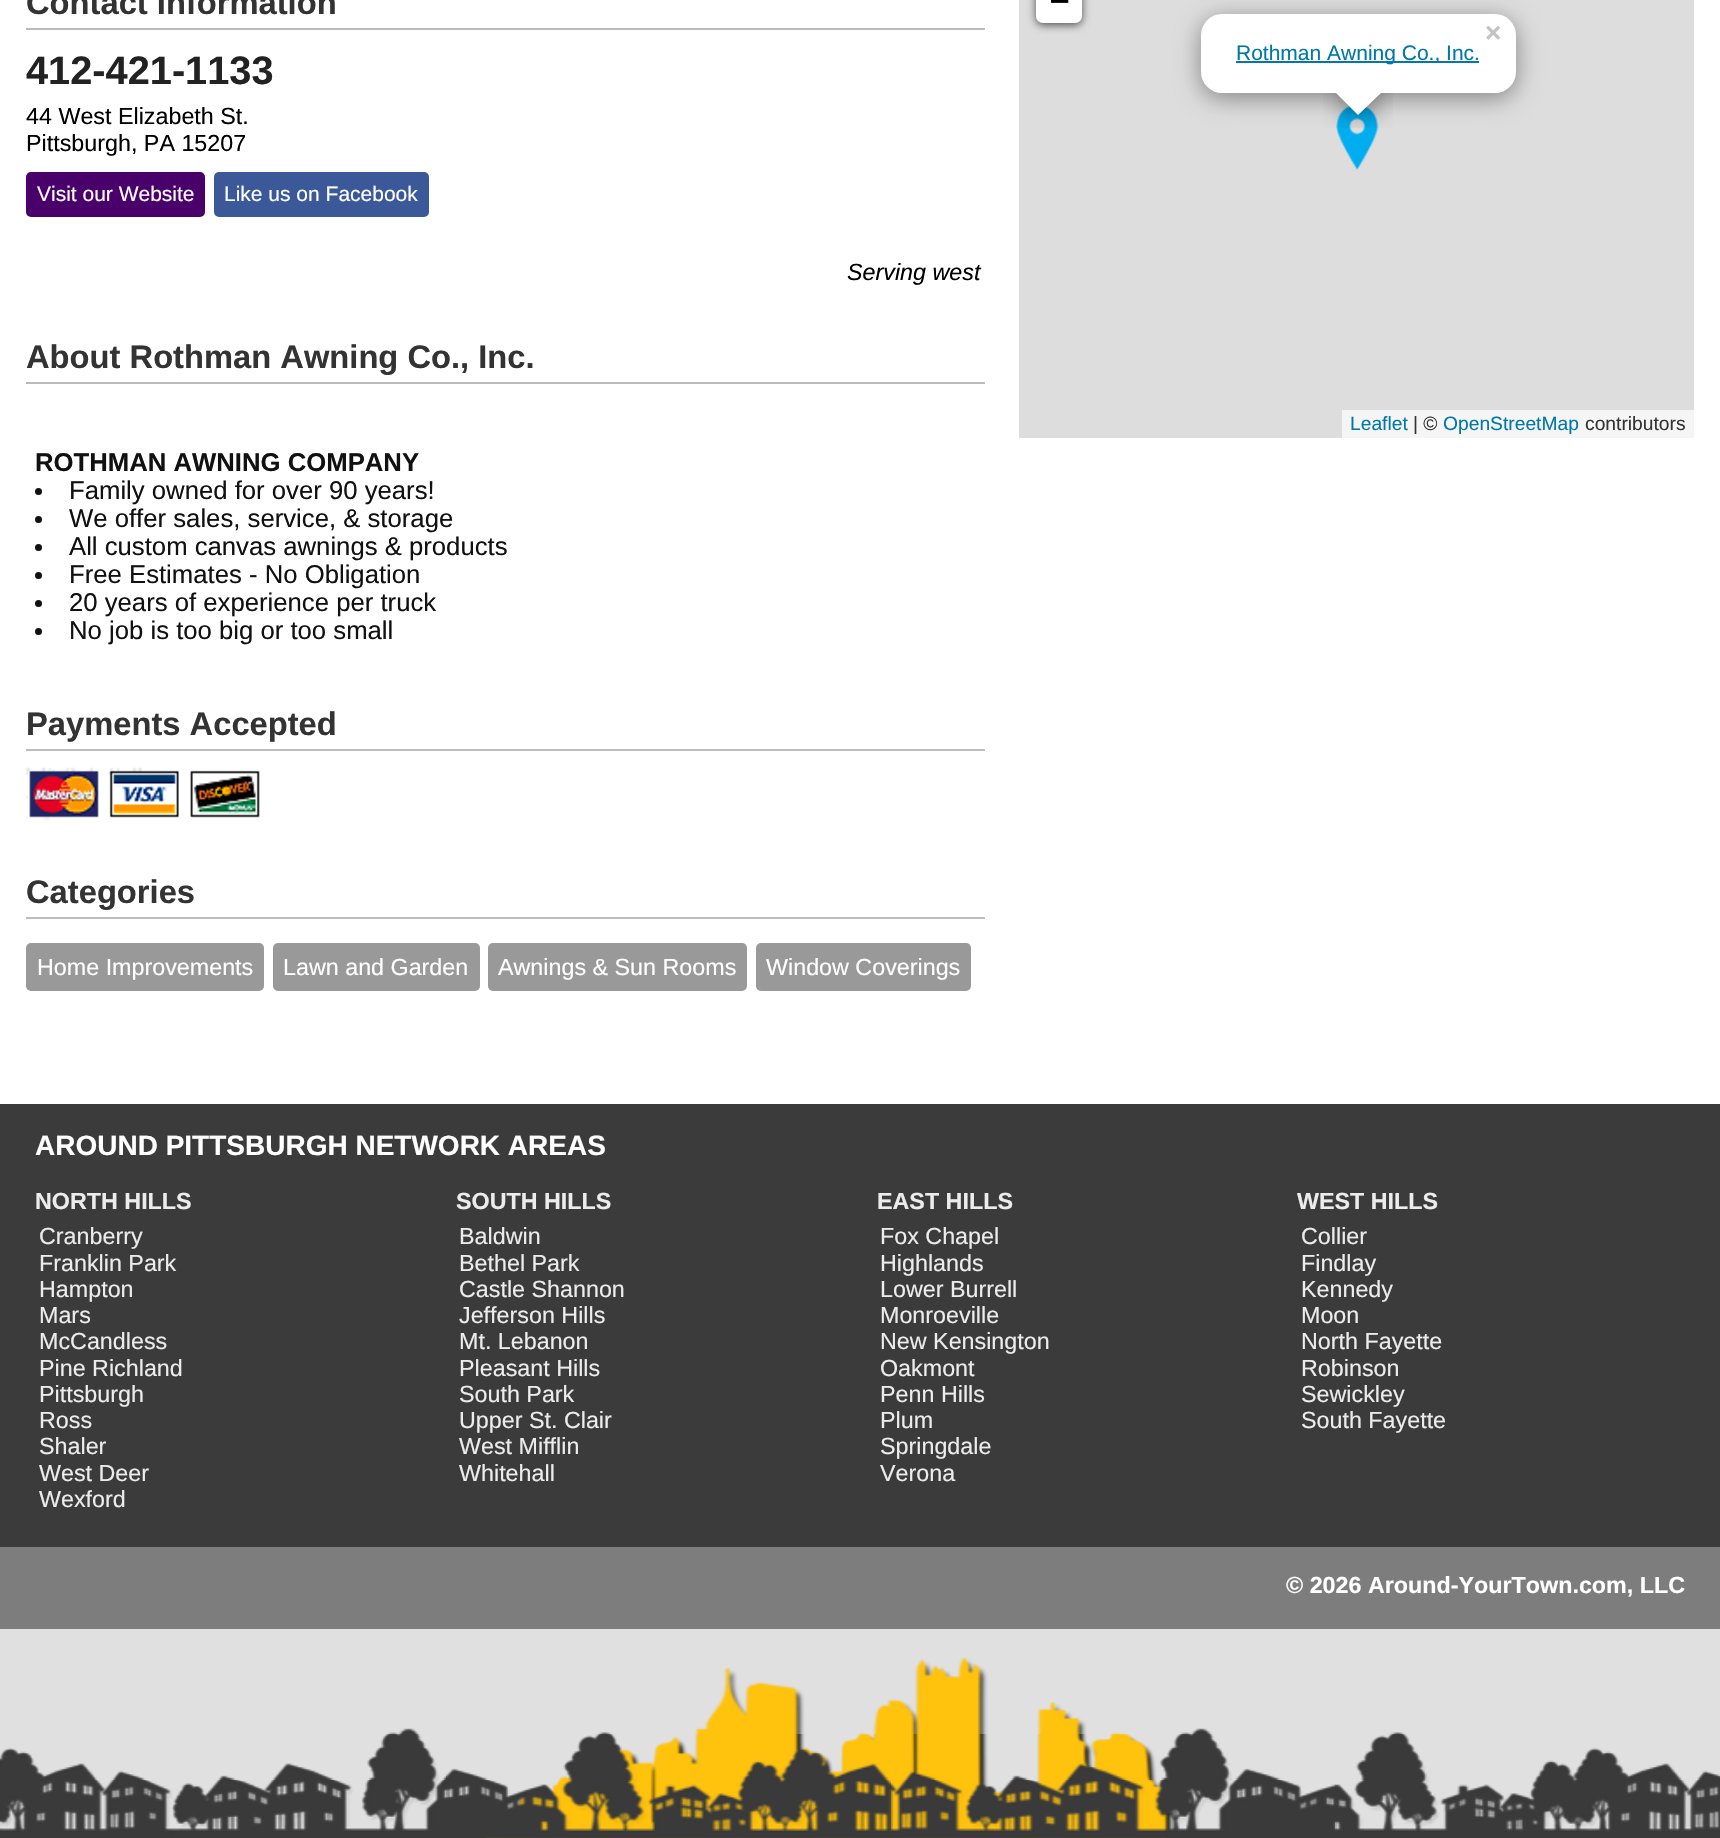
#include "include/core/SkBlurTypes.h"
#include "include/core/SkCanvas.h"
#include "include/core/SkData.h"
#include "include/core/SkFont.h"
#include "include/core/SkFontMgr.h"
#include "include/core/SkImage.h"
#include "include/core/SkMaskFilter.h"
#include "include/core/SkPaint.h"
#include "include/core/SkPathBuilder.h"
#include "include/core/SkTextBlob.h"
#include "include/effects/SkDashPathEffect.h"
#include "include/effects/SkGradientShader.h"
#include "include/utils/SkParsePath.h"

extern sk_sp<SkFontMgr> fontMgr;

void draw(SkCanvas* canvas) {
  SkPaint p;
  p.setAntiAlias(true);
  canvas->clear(SkColorSetRGB(224, 224, 224));
  canvas->drawImageRect(SkImages::DeferredFromEncodedData(SkData::MakeFromFileName("images/1.png")), SkRect::MakeLTRB(0, 1734, 1720, 1838), SkSamplingOptions());
  canvas->drawImageRect(SkImages::DeferredFromEncodedData(SkData::MakeFromFileName("images/2.png")), SkRect::MakeLTRB(0, 1657, 1720, 1838), SkSamplingOptions());
  p.setColor(SK_ColorWHITE);
  canvas->drawRect(SkRect::MakeLTRB(0, 0, 1720, 1104), p);
  p.setColor(SkColorSetRGB(187, 187, 187));
  canvas->drawRect(SkRect::MakeLTRB(26, 28, 985, 30), p);
  p.setColor(SkColorSetRGB(73, 0, 107));
  canvas->drawRoundRect(SkRect::MakeLTRB(26, 172, 205, 217), 5, 5, p);
  p.setColor(SkColorSetRGB(59, 89, 152));
  canvas->drawRoundRect(SkRect::MakeLTRB(214, 172, 429, 217), 5, 5, p);
  p.setColor(SkColorSetRGB(187, 187, 187));
  canvas->drawRect(SkRect::MakeLTRB(26, 382, 985, 384), p);
  p.setColor(SkColorSetRGB(17, 17, 17));
  canvas->drawCircle(38.5f, 491.5f, 3.5f, p);
  canvas->drawCircle(38.5f, 519.5f, 3.5f, p);
  canvas->drawCircle(38.5f, 547.5f, 3.5f, p);
  canvas->drawCircle(38.5f, 575.5f, 3.5f, p);
  canvas->drawCircle(38.5f, 603.5f, 3.5f, p);
  canvas->drawCircle(38.5f, 631.5f, 3.5f, p);
  p.setColor(SkColorSetRGB(187, 187, 187));
  canvas->drawRect(SkRect::MakeLTRB(26, 749, 985, 751), p);
  canvas->drawImageRect(SkImages::DeferredFromEncodedData(SkData::MakeFromFileName("images/3.png")), SkRect::MakeLTRB(26, 767, 260, 821), SkSamplingOptions());
  canvas->drawRect(SkRect::MakeLTRB(26, 917, 985, 919), p);
  p.setColor(SkColorSetRGB(153, 153, 153));
  canvas->drawRoundRect(SkRect::MakeLTRB(26, 943, 264, 991), 5, 5, p);
  canvas->drawRoundRect(SkRect::MakeLTRB(273, 943, 480, 991), 5, 5, p);
  canvas->drawRoundRect(SkRect::MakeLTRB(488, 943, 747, 991), 5, 5, p);
  canvas->drawRoundRect(SkRect::MakeLTRB(756, 943, 971, 991), 5, 5, p);
  p.setColor(SkColorSetRGB(221, 221, 221));
  canvas->drawRect(SkRect::MakeLTRB(1019, 0, 1694, 438), p);
  p.setColor(SkColorSetARGB(166, 0, 0, 0));
  p.setMaskFilter(SkMaskFilter::MakeBlur(kNormal_SkBlurStyle, 4.5f));
  canvas->drawRoundRect(SkRect::MakeLTRB(1036, -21, 1082, 25), 7, 7, p);
  p.setMaskFilter(nullptr);
  p.setColor(SK_ColorWHITE);
  canvas->drawPath(SkPathBuilder().moveTo(1036, -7).lineTo(1082, -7).lineTo(1082, 16).cubicTo(1082, 20, 1079, 23, 1075, 23).lineTo(1043, 23).cubicTo(1039, 23, 1036, 20, 1036, 16).close().detach(), p);
  p.setColor(SkColorSetRGB(245, 245, 245));
  canvas->drawRect(SkRect::MakeLTRB(1342, 410, 1694, 438), p);
  canvas->drawImageRect(SkImages::DeferredFromEncodedData(SkData::MakeFromFileName("images/4.png")), SkRect::MakeLTRB(1336, 105, 1379, 170), SkSamplingOptions());
  p.setColor(SkColorSetARGB(102, 0, 0, 0));
  p.setMaskFilter(SkMaskFilter::MakeBlur(kNormal_SkBlurStyle, 12));
  canvas->drawRoundRect(SkRect::MakeLTRB(1201, 19, 1516, 98), 21, 21, p);
  p.setMaskFilter(nullptr);
  p.setColor(SK_ColorWHITE);
  canvas->drawRoundRect(SkRect::MakeLTRB(1201, 14, 1516, 93), 21, 21, p);
  p.setColor(SkColorSetRGB(0, 120, 168));
  canvas->drawRect(SkRect::MakeLTRB(1236, 61, 1479, 63), p);
  canvas->save();
  canvas->clipRect(SkRect::MakeLTRB(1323, 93, 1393, 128));
  p.setColor(SkColorSetARGB(102, 0, 0, 0));
  p.setMaskFilter(SkMaskFilter::MakeBlur(kNormal_SkBlurStyle, 12.5f));
  canvas->drawRect(SkRect::MakeLTRB(1342, 81, 1376, 114), p);
  p.setMaskFilter(nullptr);
  canvas->restore();
  canvas->save();
  canvas->clipRect(SkRect::MakeLTRB(1323, 93, 1393, 128));
  p.setColor(SK_ColorWHITE);
  canvas->drawPath(SkPathBuilder().moveTo(1358, 68).lineTo(1382, 92).lineTo(1358, 115).lineTo(1335, 92).close().detach(), p);
  canvas->restore();
  p.setColor(SkColorSetRGB(59, 59, 59));
  canvas->drawRect(SkRect::MakeLTRB(0, 1104, 1720, 1547), p);
  p.setColor(SkColorSetRGB(125, 125, 125));
  canvas->drawRect(SkRect::MakeLTRB(0, 1547, 1720, 1629), p);
  SkFont font1(fontMgr->matchFamilyStyle("Liberation Sans", SkFontStyle::Bold()), 32.7f);
  font1.setSubpixel(true);
  p.setColor(SkColorSetRGB(51, 51, 51));
  canvas->drawString("Contact Information", 26, 14, font1, p);
  SkFont font2(fontMgr->matchFamilyStyle("Liberation Sans", SkFontStyle::Bold()), 39.75f);
  font2.setSubpixel(true);
  p.setColor(SkColorSetRGB(34, 34, 34));
  canvas->drawString("412-421-1133", 26, 84, font2, p);
  SkFont font3(fontMgr->matchFamilyStyle("Liberation Sans", SkFontStyle::Normal()), 23.3f);
  font3.setSubpixel(true);
  p.setColor(SK_ColorBLACK);
  canvas->drawString("44 West Elizabeth St.", 26, 124, font3, p);
  canvas->drawString("Pittsburgh, PA 15207", 26, 151, font3, p);
  SkFont font4(fontMgr->matchFamilyStyle("Liberation Sans", SkFontStyle::Normal()), 21);
  font4.setSubpixel(true);
  p.setColor(SK_ColorWHITE);
  canvas->drawString("Visit our Website", 37, 201, font4, p);
  canvas->drawString("Like us on Facebook", 224, 201, font4, p);
  SkFont font5(fontMgr->matchFamilyStyle("Liberation Sans", SkFontStyle::Italic()), 23.3f);
  font5.setSubpixel(true);
  p.setColor(SK_ColorBLACK);
  canvas->drawString("Serving west", 847, 280, font5, p);
  p.setColor(SkColorSetRGB(51, 51, 51));
  canvas->drawString("About Rothman Awning Co., Inc.", 26, 368, font1, p);
  SkFont font6(fontMgr->matchFamilyStyle("Liberation Sans", SkFontStyle::Bold()), 25.7f);
  font6.setSubpixel(true);
  p.setColor(SkColorSetRGB(17, 17, 17));
  canvas->drawString("ROTHMAN AWNING COMPANY", 35, 471, font6, p);
  SkFont font7(fontMgr->matchFamilyStyle("Liberation Sans", SkFontStyle::Normal()), 25.7f);
  font7.setSubpixel(true);
  canvas->drawString("Family owned for over 90 years!", 69, 499, font7, p);
  canvas->drawString("We offer sales, service, & storage", 69, 527, font7, p);
  canvas->drawString("All custom canvas awnings & products", 69, 555, font7, p);
  canvas->drawString("Free Estimates - No Obligation", 69, 583, font7, p);
  canvas->drawString("20 years of experience per truck", 69, 611, font7, p);
  canvas->drawString("No job is too big or too small", 69, 639, font7, p);
  p.setColor(SkColorSetRGB(51, 51, 51));
  canvas->drawString("Payments Accepted", 26, 735, font1, p);
  canvas->drawString("Categories", 26, 903, font1, p);
  p.setColor(SK_ColorWHITE);
  canvas->drawString("Home Improvements", 37, 975, font3, p);
  canvas->drawString("Lawn and Garden", 283, 975, font3, p);
  canvas->drawString("Awnings & Sun Rooms", 498, 975, font3, p);
  canvas->drawString("Window Coverings", 766, 975, font3, p);
  SkFont font8(fontMgr->matchFamilyStyle("DejaVu Sans Mono", SkFontStyle::Bold()), 32);
  font8.setSubpixel(true);
  p.setColor(SK_ColorBLACK);
  canvas->drawString("−", 1050, 11, font8, p);
  SkFont font9(fontMgr->matchFamilyStyle("Liberation Sans", SkFontStyle::Normal()), 19.25f);
  font9.setSubpixel(true);
  p.setColor(SkColorSetRGB(0, 120, 168));
  canvas->drawString("Leaflet", 1350, 430, font9, p);
  p.setColor(SkColorSetRGB(51, 51, 51));
  canvas->drawString("| ©", 1413, 430, font9, p);
  p.setColor(SkColorSetRGB(0, 120, 168));
  canvas->drawString("OpenStreetMap", 1443, 430, font9, p);
  p.setColor(SkColorSetRGB(51, 51, 51));
  canvas->drawString("contributors", 1585, 430, font9, p);
  SkFont font10(fontMgr->matchFamilyStyle("Liberation Sans", SkFontStyle::Bold()), 28);
  font10.setSubpixel(true);
  p.setColor(SkColorSetRGB(195, 195, 195));
  canvas->drawString("×", 1485, 42, font10, p);
  p.setColor(SkColorSetRGB(0, 120, 168));
  canvas->drawString("Rothman Awning Co., Inc.", 1236, 60, font4, p);
  p.setColor(SK_ColorWHITE);
  canvas->drawString("AROUND PITTSBURGH NETWORK AREAS", 35, 1155, font10, p);
  SkFont font11(fontMgr->matchFamilyStyle("Liberation Sans", SkFontStyle::Bold()), 23.3f);
  font11.setSubpixel(true);
  p.setColor(SkColorSetRGB(236, 236, 236));
  canvas->drawString("NORTH HILLS", 35, 1209, font11, p);
  canvas->drawString("Cranberry", 39, 1244, font3, p);
  canvas->drawString("Franklin Park", 39, 1271, font3, p);
  canvas->drawString("Hampton", 39, 1297, font3, p);
  canvas->drawString("Mars", 39, 1323, font3, p);
  canvas->drawString("McCandless", 39, 1349, font3, p);
  canvas->drawString("Pine Richland", 39, 1376, font3, p);
  canvas->drawString("Pittsburgh", 39, 1402, font3, p);
  canvas->drawString("Ross", 39, 1428, font3, p);
  canvas->drawString("Shaler", 39, 1454, font3, p);
  canvas->drawString("West Deer", 39, 1481, font3, p);
  canvas->drawString("Wexford", 39, 1507, font3, p);
  canvas->drawString("SOUTH HILLS", 456, 1209, font11, p);
  canvas->drawString("Baldwin", 459, 1244, font3, p);
  canvas->drawString("Bethel Park", 459, 1271, font3, p);
  canvas->drawString("Castle Shannon", 459, 1297, font3, p);
  canvas->drawString("Jefferson Hills", 459, 1323, font3, p);
  canvas->drawString("Mt. Lebanon", 459, 1349, font3, p);
  canvas->drawString("Pleasant Hills", 459, 1376, font3, p);
  canvas->drawString("South Park", 459, 1402, font3, p);
  canvas->drawString("Upper St. Clair", 459, 1428, font3, p);
  canvas->drawString("West Mifflin", 459, 1454, font3, p);
  canvas->drawString("Whitehall", 459, 1481, font3, p);
  canvas->drawString("EAST HILLS", 877, 1209, font11, p);
  canvas->drawString("Fox Chapel", 880, 1244, font3, p);
  canvas->drawString("Highlands", 880, 1271, font3, p);
  canvas->drawString("Lower Burrell", 880, 1297, font3, p);
  canvas->drawString("Monroeville", 880, 1323, font3, p);
  canvas->drawString("New Kensington", 880, 1349, font3, p);
  canvas->drawString("Oakmont", 880, 1376, font3, p);
  canvas->drawString("Penn Hills", 880, 1402, font3, p);
  canvas->drawString("Plum", 880, 1428, font3, p);
  canvas->drawString("Springdale", 880, 1454, font3, p);
  canvas->drawString("Verona", 880, 1481, font3, p);
  canvas->drawString("WEST HILLS", 1297, 1209, font11, p);
  canvas->drawString("Collier", 1301, 1244, font3, p);
  canvas->drawString("Findlay", 1301, 1271, font3, p);
  canvas->drawString("Kennedy", 1301, 1297, font3, p);
  canvas->drawString("Moon", 1301, 1323, font3, p);
  canvas->drawString("North Fayette", 1301, 1349, font3, p);
  canvas->drawString("Robinson", 1301, 1376, font3, p);
  canvas->drawString("Sewickley", 1301, 1402, font3, p);
  canvas->drawString("South Fayette", 1301, 1428, font3, p);
  p.setColor(SK_ColorWHITE);
  canvas->drawString("© 2026 Around-YourTown.com, LLC", 1286, 1593, font11, p);
}
